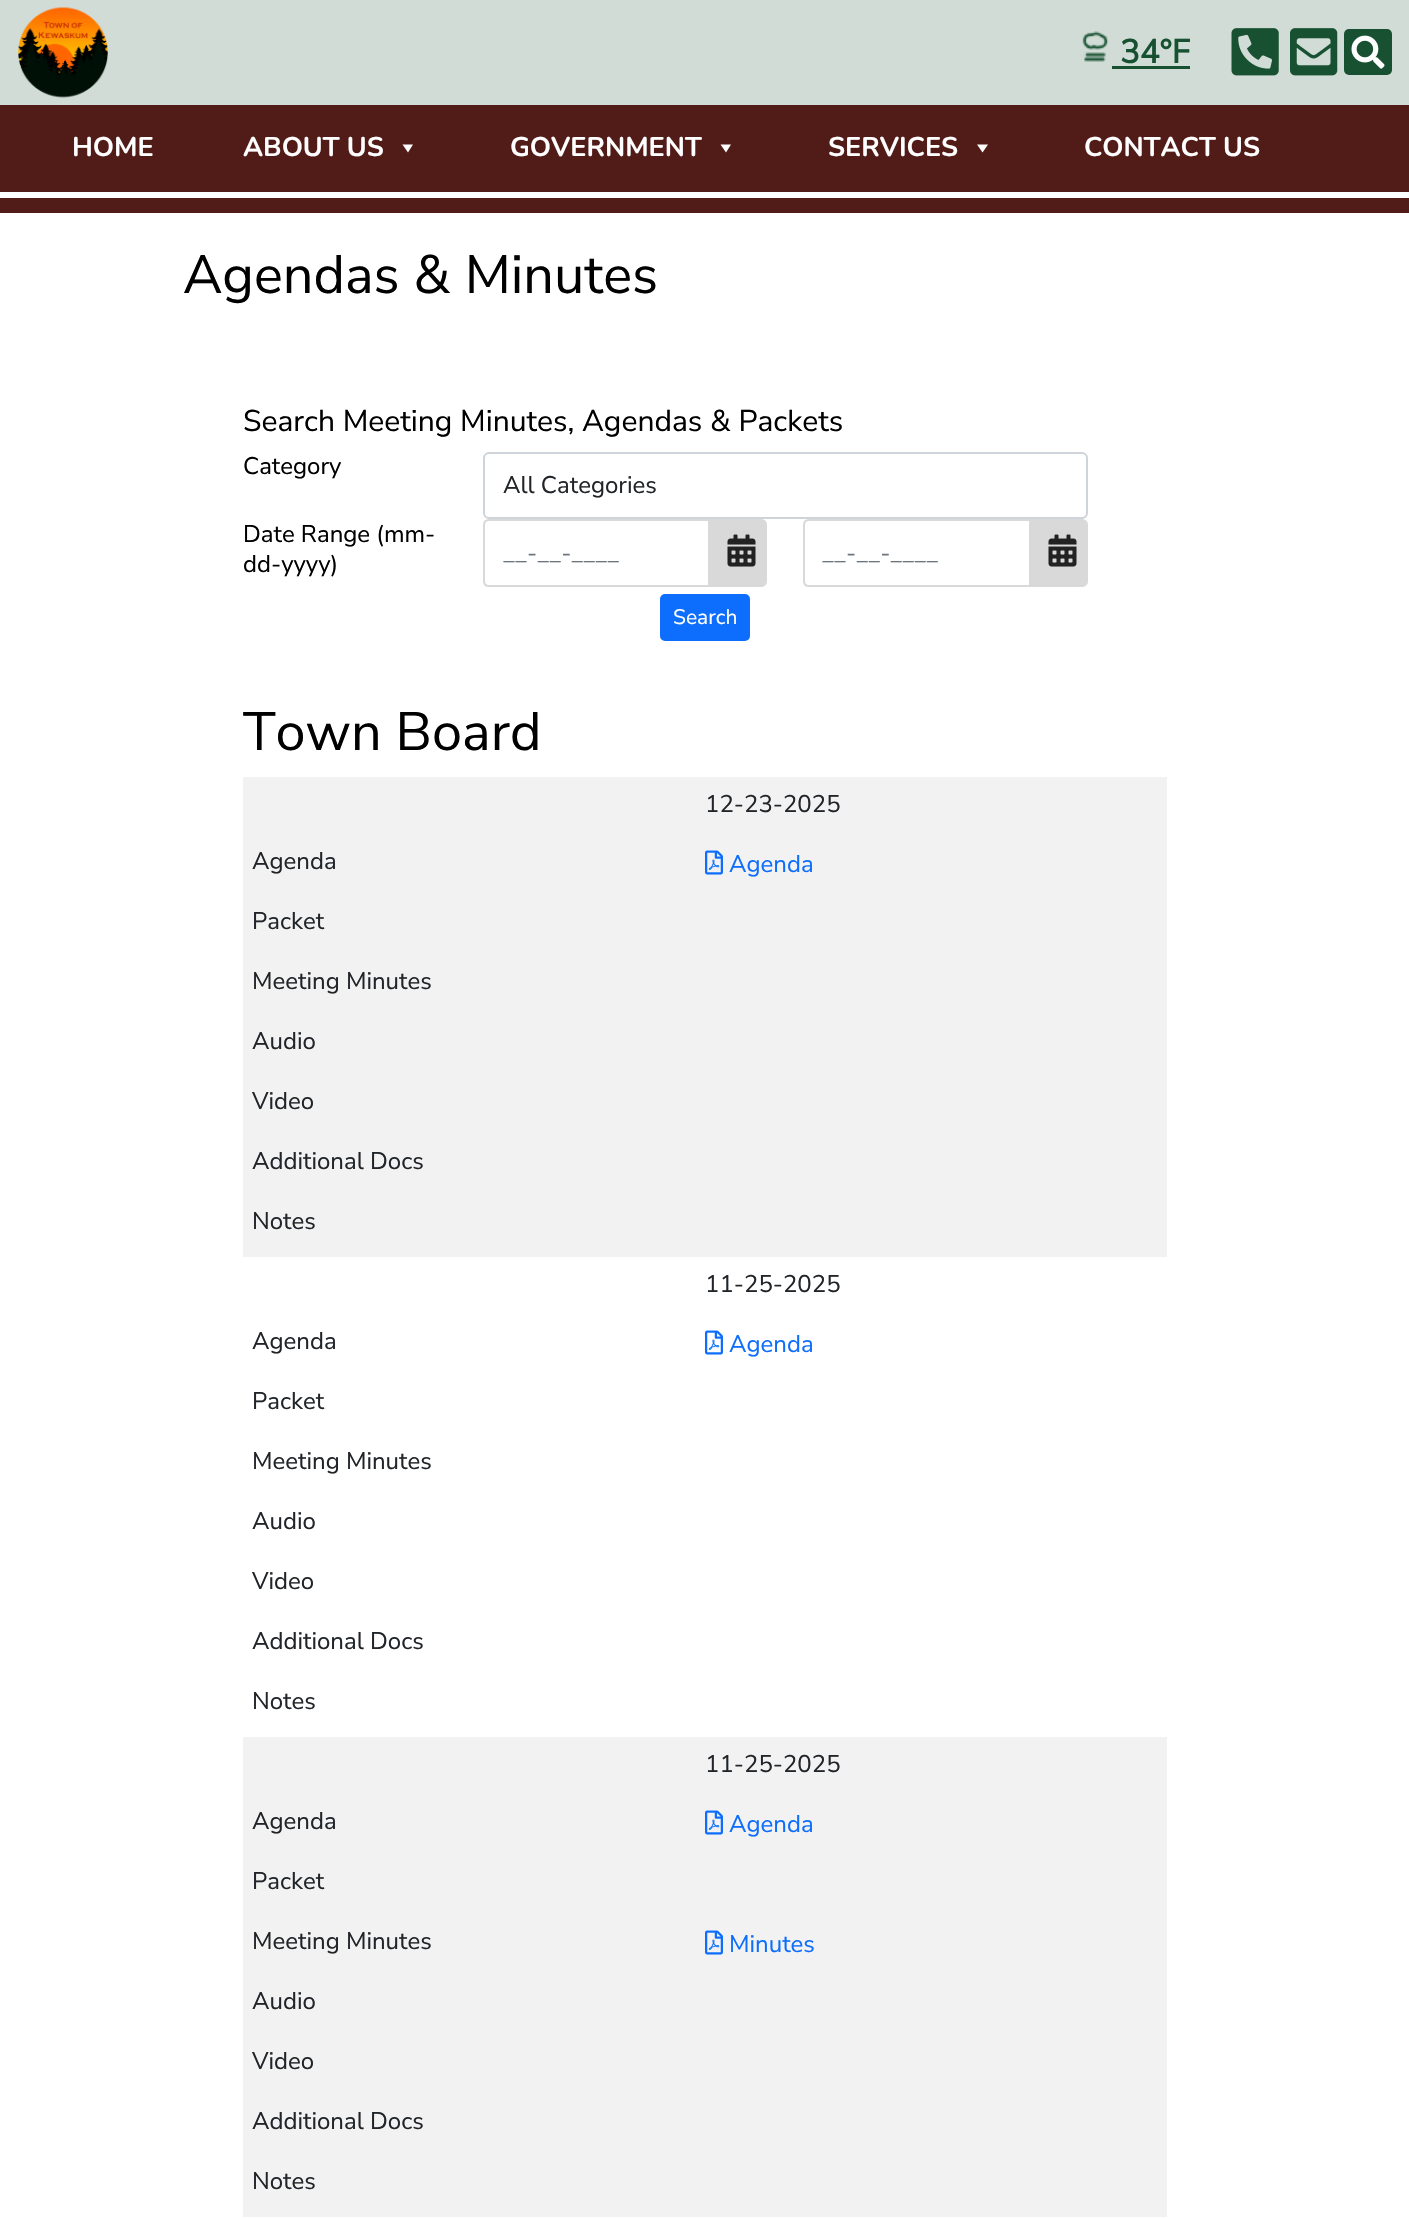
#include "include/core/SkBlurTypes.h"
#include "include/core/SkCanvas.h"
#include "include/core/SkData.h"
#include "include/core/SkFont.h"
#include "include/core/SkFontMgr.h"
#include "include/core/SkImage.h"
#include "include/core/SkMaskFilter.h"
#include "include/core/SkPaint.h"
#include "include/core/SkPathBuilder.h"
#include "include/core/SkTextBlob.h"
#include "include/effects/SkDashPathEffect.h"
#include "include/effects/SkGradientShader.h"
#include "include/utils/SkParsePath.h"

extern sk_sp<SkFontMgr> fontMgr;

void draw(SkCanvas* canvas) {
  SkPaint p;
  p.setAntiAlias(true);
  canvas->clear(SK_ColorWHITE);
  p.setColor(SkColorSetRGB(81, 27, 24));
  canvas->drawRect(SkRect::MakeLTRB(0, 105, 1409, 213), p);
  p.setColor(SkColorSetRGB(209, 220, 214));
  canvas->drawRect(SkRect::MakeLTRB(0, 0, 1409, 105), p);
  canvas->drawImageRect(SkImages::DeferredFromEncodedData(SkData::MakeFromFileName("images/1.png")), SkRect::MakeLTRB(18, 7, 108, 98), SkSamplingOptions());
  canvas->drawImageRect(SkImages::DeferredFromEncodedData(SkData::MakeFromFileName("images/2.png")), SkRect::MakeLTRB(1082, 31, 1109, 62), SkSamplingOptions());
  p.setColor(SkColorSetRGB(24, 81, 50));
  canvas->drawRect(SkRect::MakeLTRB(1112, 66, 1190, 69), p);
  canvas->drawImageRect(SkImages::DeferredFromEncodedData(SkData::MakeFromFileName("images/3.png")), SkRect::MakeLTRB(1231, 28, 1279, 76), SkSamplingOptions());
  canvas->drawImageRect(SkImages::DeferredFromEncodedData(SkData::MakeFromFileName("images/4.png")), SkRect::MakeLTRB(1290, 28, 1338, 76), SkSamplingOptions());
  canvas->drawRoundRect(SkRect::MakeLTRB(1344, 29, 1392, 75), 5, 5, p);
  canvas->drawImageRect(SkImages::DeferredFromEncodedData(SkData::MakeFromFileName("images/5.png")), SkRect::MakeLTRB(1351, 35, 1385, 69), SkSamplingOptions());
  p.setColor(SK_ColorWHITE);
  canvas->drawPath(SkPathBuilder().moveTo(413, 144.5f).lineTo(408, 152.5f).lineTo(402.5f, 144.5f).close().detach(), p);
  canvas->drawPath(SkPathBuilder().moveTo(731, 144.5f).lineTo(726, 152.5f).lineTo(720.5f, 144.5f).close().detach(), p);
  canvas->drawPath(SkPathBuilder().moveTo(988, 144.5f).lineTo(982.5f, 152.5f).lineTo(977, 144.5f).close().detach(), p);
  canvas->drawRect(SkRect::MakeLTRB(0, 192, 1409, 198), p);
  p.setStyle(SkPaint::kStroke_Style);
  p.setStrokeWidth(2);
  p.setColor(SkColorSetRGB(206, 212, 218));
  canvas->drawRoundRect(SkRect::MakeLTRB(484, 453, 1087, 518), 5, 5, p);
  p.setColor(SkColorSetRGB(217, 217, 217));
  canvas->drawPath(SkPathBuilder().moveTo(489, 520).lineTo(709, 520).lineTo(709, 586).lineTo(489, 586).cubicTo(486, 586, 484, 584, 484, 581).lineTo(484, 525).cubicTo(484, 522, 486, 520, 489, 520).close().detach(), p);
  p.setStyle(SkPaint::kFill_Style);
  canvas->drawPath(SkPathBuilder().moveTo(710, 519).lineTo(761, 519).cubicTo(764.5f, 519, 767, 521.5f, 767, 525).lineTo(767, 581).cubicTo(767, 584.5f, 764.5f, 587, 761, 587).lineTo(710, 587).close().detach(), p);
  canvas->drawImageRect(SkImages::DeferredFromEncodedData(SkData::MakeFromFileName("images/6.png")), SkRect::MakeLTRB(727, 534, 756, 567), SkSamplingOptions());
  p.setStyle(SkPaint::kStroke_Style);
  canvas->drawPath(SkPathBuilder().moveTo(809, 520).lineTo(1030, 520).lineTo(1030, 586).lineTo(809, 586).cubicTo(806, 586, 804, 584, 804, 581).lineTo(804, 525).cubicTo(804, 522, 806, 520, 809, 520).close().detach(), p);
  p.setStyle(SkPaint::kFill_Style);
  canvas->drawPath(SkPathBuilder().moveTo(1031, 519).lineTo(1082, 519).cubicTo(1085.5f, 519, 1088, 521.5f, 1088, 525).lineTo(1088, 581).cubicTo(1088, 584.5f, 1085.5f, 587, 1082, 587).lineTo(1031, 587).close().detach(), p);
  canvas->drawImageRect(SkImages::DeferredFromEncodedData(SkData::MakeFromFileName("images/6.png")), SkRect::MakeLTRB(1048, 534, 1077, 567), SkSamplingOptions());
  p.setColor(SkColorSetRGB(13, 110, 253));
  canvas->drawRoundRect(SkRect::MakeLTRB(661, 595, 749, 640), 4, 4, p);
  p.setStyle(SkPaint::kStroke_Style);
  canvas->drawRoundRect(SkRect::MakeLTRB(661, 595, 749, 640), 4, 4, p);
  p.setStyle(SkPaint::kFill_Style);
  p.setColor(SkColorSetRGB(242, 242, 242));
  canvas->drawRect(SkRect::MakeLTRB(243, 777, 1167, 1257), p);
  canvas->drawImageRect(SkImages::DeferredFromEncodedData(SkData::MakeFromFileName("images/7.png")), SkRect::MakeLTRB(705, 850, 723, 875), SkSamplingOptions());
  canvas->drawImageRect(SkImages::DeferredFromEncodedData(SkData::MakeFromFileName("images/8.png")), SkRect::MakeLTRB(705, 1330, 723, 1355), SkSamplingOptions());
  canvas->drawRect(SkRect::MakeLTRB(243, 1737, 1167, 2217), p);
  canvas->drawImageRect(SkImages::DeferredFromEncodedData(SkData::MakeFromFileName("images/7.png")), SkRect::MakeLTRB(705, 1810, 723, 1835), SkSamplingOptions());
  canvas->drawImageRect(SkImages::DeferredFromEncodedData(SkData::MakeFromFileName("images/7.png")), SkRect::MakeLTRB(705, 1930, 723, 1955), SkSamplingOptions());
  SkFont font1(fontMgr->matchFamilyStyle("Nunito Sans", SkFontStyle::Bold()), 33);
  font1.setSubpixel(true);
  p.setColor(SkColorSetRGB(24, 81, 50));
  canvas->drawString("34°F", 1120, 63, font1, p);
  SkFont font2(fontMgr->matchFamilyStyle("Nunito", SkFontStyle::Bold()), 27);
  font2.setSubpixel(true);
  p.setColor(SK_ColorWHITE);
  canvas->drawString("HOME", 72, 156, font2, p);
  canvas->drawString("ABOUT US", 243, 156, font2, p);
  canvas->drawString("GOVERNMENT", 510, 156, font2, p);
  canvas->drawString("SERVICES", 828, 156, font2, p);
  canvas->drawString("CONTACT US", 1084, 156, font2, p);
  SkFont font3(fontMgr->matchFamilyStyle("Nunito Sans", SkFontStyle(200, SkFontStyle::kNormal_Width, SkFontStyle::kUpright_Slant)), 54);
  font3.setSubpixel(true);
  p.setColor(SK_ColorBLACK);
  canvas->drawString("Agendas & Minutes", 183, 293, font3, p);
  SkFont font4(fontMgr->matchFamilyStyle("Nunito Sans", SkFontStyle(200, SkFontStyle::kNormal_Width, SkFontStyle::kUpright_Slant)), 30);
  font4.setSubpixel(true);
  canvas->drawString("Search Meeting Minutes, Agendas & Packets", 243, 431, font4, p);
  SkFont font5(fontMgr->matchFamilyStyle("Nunito Sans", SkFontStyle(200, SkFontStyle::kNormal_Width, SkFontStyle::kUpright_Slant)), 24);
  font5.setSubpixel(true);
  canvas->drawString("Category", 243, 474, font5, p);
  p.setColor(SkColorSetRGB(33, 37, 41));
  canvas->drawString("All Categories", 503, 493, font5, p);
  p.setColor(SK_ColorBLACK);
  canvas->drawString("Date Range (mm-", 243, 542, font5, p);
  canvas->drawString("dd-yyyy)", 243, 572, font5, p);
  p.setColor(SkColorSetRGB(108, 117, 125));
  canvas->drawString("__-__-____", 503, 561, font5, p);
  canvas->drawString("__-__-____", 822, 561, font5, p);
  SkFont font6(fontMgr->matchFamilyStyle("Nunito Sans", SkFontStyle(200, SkFontStyle::kNormal_Width, SkFontStyle::kUpright_Slant)), 21);
  font6.setSubpixel(true);
  p.setColor(SK_ColorWHITE);
  canvas->drawString("Search", 673, 624, font6, p);
  p.setColor(SK_ColorBLACK);
  canvas->drawString("Town Board", 243, 750, font3, p);
  p.setColor(SkColorSetRGB(33, 37, 41));
  canvas->drawString("12-23-2025", 705, 812, font5, p);
  canvas->drawString("Agenda", 252, 869, font5, p);
  p.setColor(SkColorSetRGB(13, 110, 253));
  canvas->drawString("Agenda", 729, 872, font5, p);
  p.setColor(SkColorSetRGB(33, 37, 41));
  canvas->drawString("Packet", 252, 929, font5, p);
  canvas->drawString("Meeting Minutes", 252, 989, font5, p);
  canvas->drawString("Audio", 252, 1049, font5, p);
  canvas->drawString("Video", 252, 1109, font5, p);
  canvas->drawString("Additional Docs", 252, 1169, font5, p);
  canvas->drawString("Notes", 252, 1229, font5, p);
  canvas->drawString("11-25-2025", 705, 1292, font5, p);
  canvas->drawString("Agenda", 252, 1349, font5, p);
  p.setColor(SkColorSetRGB(13, 110, 253));
  canvas->drawString("Agenda", 729, 1352, font5, p);
  p.setColor(SkColorSetRGB(33, 37, 41));
  canvas->drawString("Packet", 252, 1409, font5, p);
  canvas->drawString("Meeting Minutes", 252, 1469, font5, p);
  canvas->drawString("Audio", 252, 1529, font5, p);
  canvas->drawString("Video", 252, 1589, font5, p);
  canvas->drawString("Additional Docs", 252, 1649, font5, p);
  canvas->drawString("Notes", 252, 1709, font5, p);
  canvas->drawString("11-25-2025", 705, 1772, font5, p);
  canvas->drawString("Agenda", 252, 1829, font5, p);
  p.setColor(SkColorSetRGB(13, 110, 253));
  canvas->drawString("Agenda", 729, 1832, font5, p);
  p.setColor(SkColorSetRGB(33, 37, 41));
  canvas->drawString("Packet", 252, 1889, font5, p);
  canvas->drawString("Meeting Minutes", 252, 1949, font5, p);
  p.setColor(SkColorSetRGB(13, 110, 253));
  canvas->drawString("Minutes", 729, 1952, font5, p);
  p.setColor(SkColorSetRGB(33, 37, 41));
  canvas->drawString("Audio", 252, 2009, font5, p);
  canvas->drawString("Video", 252, 2069, font5, p);
  canvas->drawString("Additional Docs", 252, 2129, font5, p);
  canvas->drawString("Notes", 252, 2189, font5, p);
}
